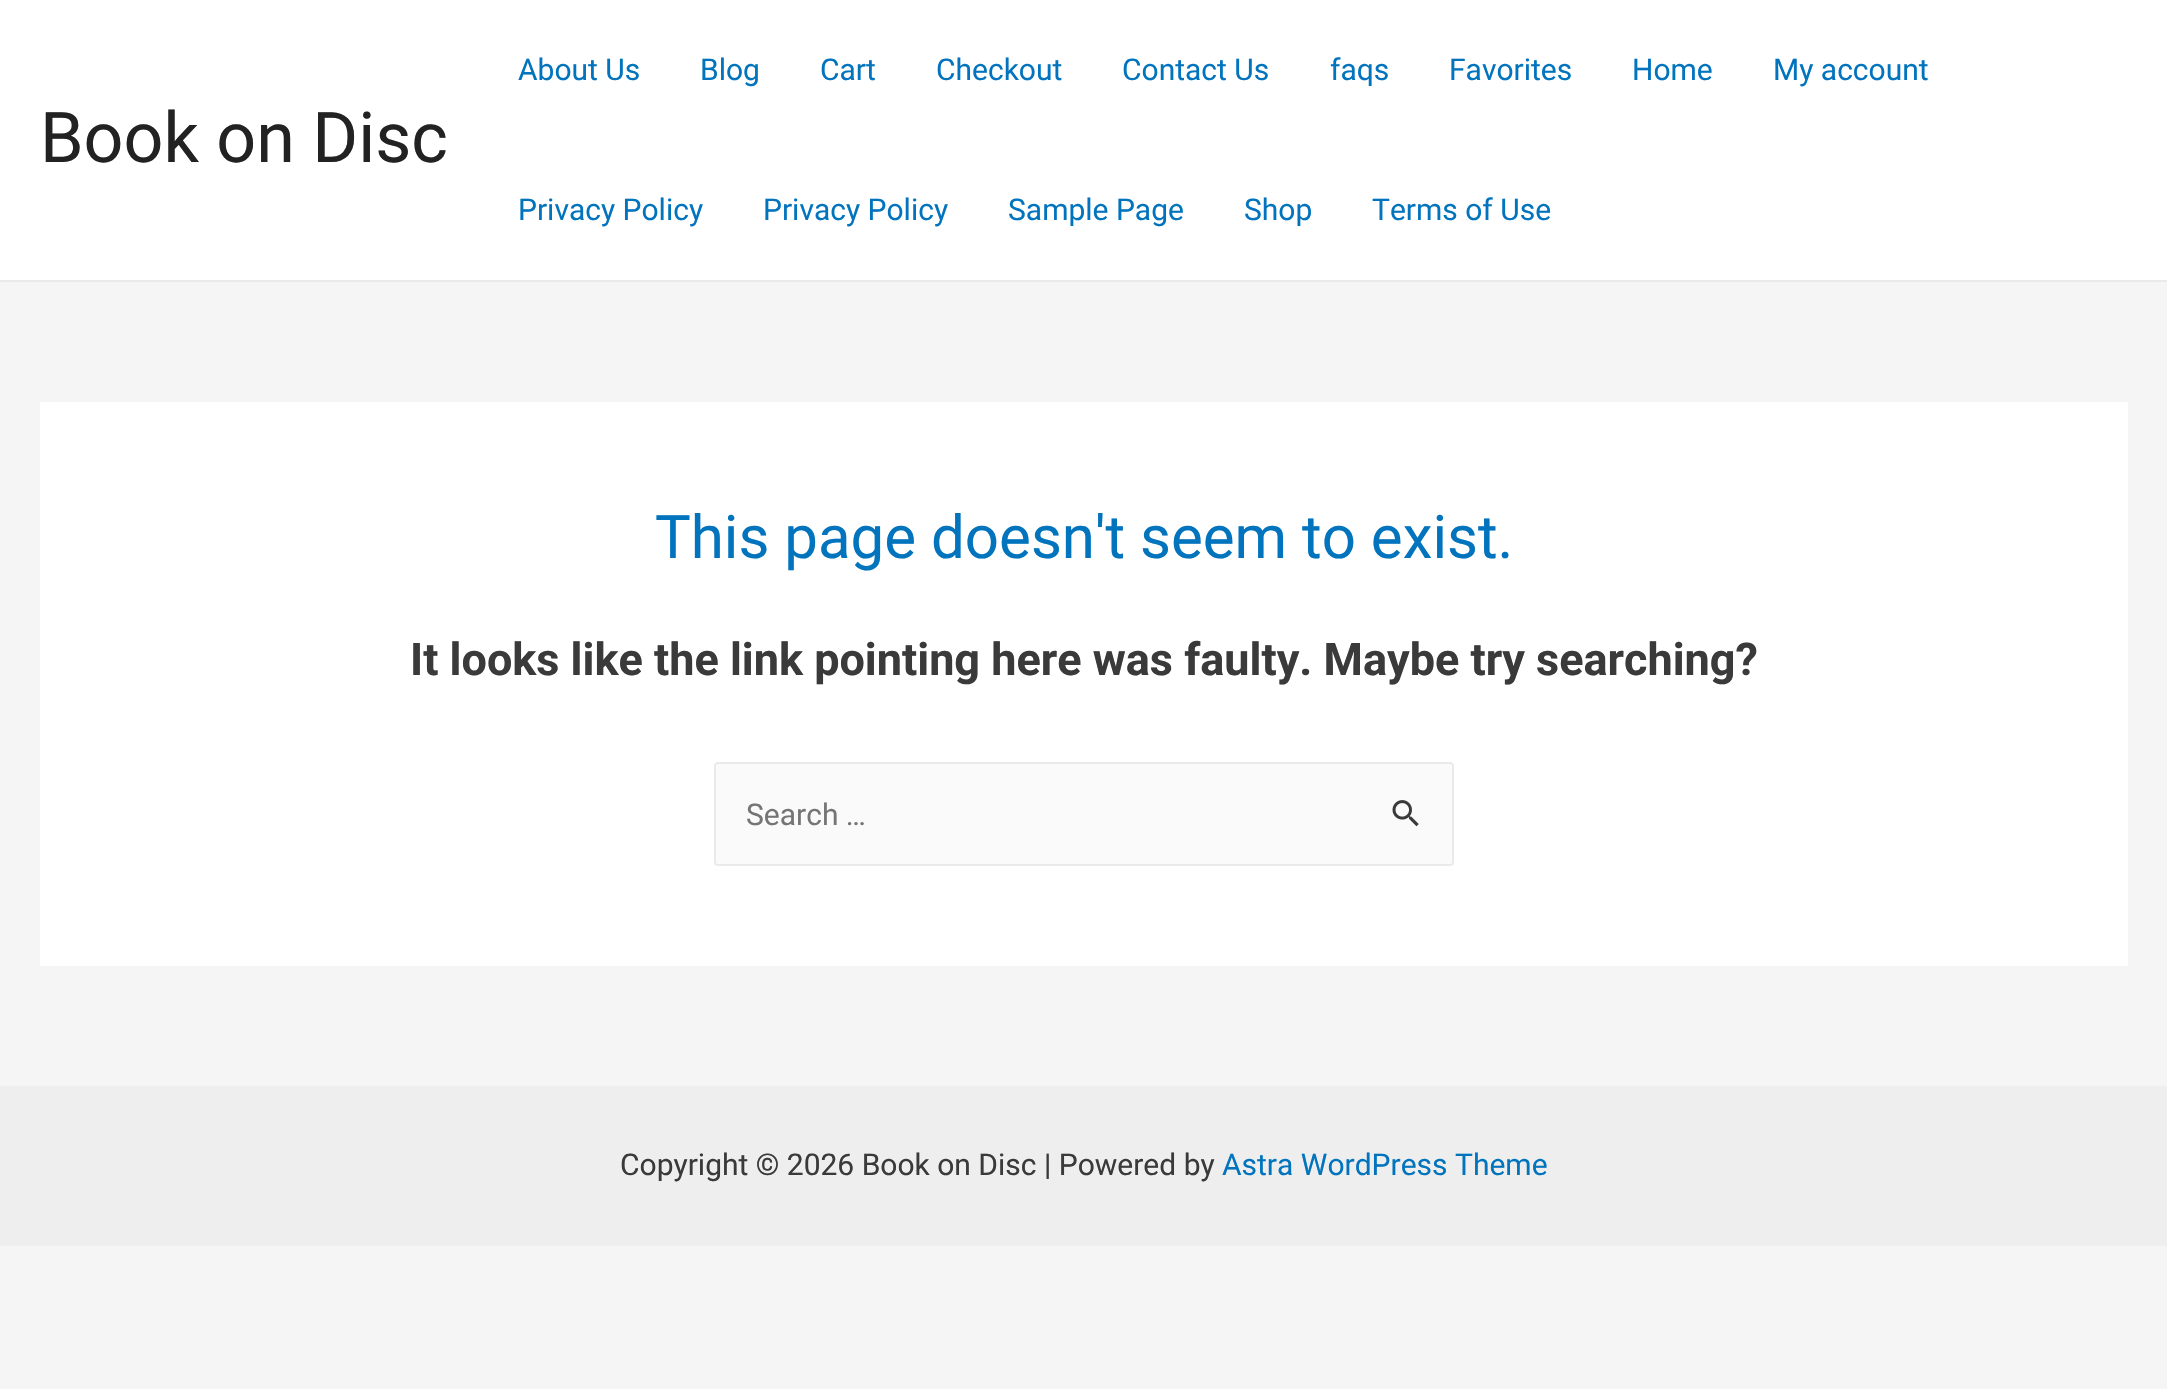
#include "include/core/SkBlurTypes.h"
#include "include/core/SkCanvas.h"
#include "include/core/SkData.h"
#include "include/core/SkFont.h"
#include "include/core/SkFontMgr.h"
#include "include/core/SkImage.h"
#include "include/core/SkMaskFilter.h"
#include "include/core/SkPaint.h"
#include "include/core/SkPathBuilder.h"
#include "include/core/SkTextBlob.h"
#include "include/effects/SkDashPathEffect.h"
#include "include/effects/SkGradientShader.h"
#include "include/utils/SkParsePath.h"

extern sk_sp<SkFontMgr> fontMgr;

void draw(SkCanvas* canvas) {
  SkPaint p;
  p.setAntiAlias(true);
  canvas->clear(SkColorSetRGB(245, 245, 245));
  p.setColor(SK_ColorWHITE);
  canvas->drawRect(SkRect::MakeLTRB(0, 0, 2167, 280), p);
  p.setColor(SkColorSetRGB(234, 234, 234));
  canvas->drawRect(SkRect::MakeLTRB(0, 280, 2167, 282), p);
  p.setColor(SK_ColorWHITE);
  canvas->drawRect(SkRect::MakeLTRB(40, 402, 2128, 966), p);
  p.setColor(SkColorSetRGB(250, 250, 250));
  canvas->drawRoundRect(SkRect::MakeLTRB(715, 763, 1453, 865), 3, 3, p);
  p.setStyle(SkPaint::kStroke_Style);
  p.setStrokeWidth(2);
  p.setColor(SkColorSetRGB(234, 234, 234));
  canvas->drawRoundRect(SkRect::MakeLTRB(715, 763, 1453, 865), 3, 3, p);
  canvas->drawImageRect(SkImages::DeferredFromEncodedData(SkData::MakeFromFileName("images/1.png")), SkRect::MakeLTRB(1392, 800, 1419, 827), SkSamplingOptions());
  p.setStyle(SkPaint::kFill_Style);
  p.setColor(SkColorSetRGB(238, 238, 238));
  canvas->drawRect(SkRect::MakeLTRB(0, 1086, 2167, 1246), p);
  SkFont font1(fontMgr->matchFamilyStyle("Roboto", SkFontStyle::Normal()), 70);
  font1.setSubpixel(true);
  p.setColor(SkColorSetRGB(34, 34, 34));
  canvas->drawString("Book on Disc", 40, 162, font1, p);
  SkFont font2(fontMgr->matchFamilyStyle("Roboto", SkFontStyle::Normal()), 30);
  font2.setSubpixel(true);
  p.setColor(SkColorSetRGB(2, 116, 190));
  canvas->drawString("About Us", 518, 80, font2, p);
  canvas->drawString("Blog", 700, 80, font2, p);
  canvas->drawString("Cart", 820, 80, font2, p);
  canvas->drawString("Checkout", 936, 80, font2, p);
  canvas->drawString("Contact Us", 1122, 80, font2, p);
  canvas->drawString("faqs", 1330, 80, font2, p);
  canvas->drawString("Favorites", 1449, 80, font2, p);
  canvas->drawString("Home", 1632, 80, font2, p);
  canvas->drawString("My account", 1773, 80, font2, p);
  canvas->drawString("Privacy Policy", 518, 220, font2, p);
  canvas->drawString("Privacy Policy", 763, 220, font2, p);
  canvas->drawString("Sample Page", 1008, 220, font2, p);
  canvas->drawString("Shop", 1244, 220, font2, p);
  canvas->drawString("Terms of Use", 1372, 220, font2, p);
  SkFont font3(fontMgr->matchFamilyStyle("Roboto", SkFontStyle::Normal()), 60);
  font3.setSubpixel(true);
  canvas->drawString("This page doesn't seem to exist.", 655, 558, font3, p);
  SkFont font4(fontMgr->matchFamilyStyle("Roboto", SkFontStyle::Bold()), 45);
  font4.setSubpixel(true);
  p.setColor(SkColorSetRGB(58, 58, 58));
  canvas->drawString("It looks like the link pointing here was faulty. Maybe try searching?", 410, 675, font4, p);
  p.setColor(SkColorSetRGB(117, 117, 117));
  canvas->drawString("Search …", 746, 825, font2, p);
  p.setColor(SkColorSetRGB(58, 58, 58));
  canvas->drawString("Copyright © 2026 Book on Disc | Powered by", 620, 1175, font2, p);
  p.setColor(SkColorSetRGB(2, 116, 190));
  canvas->drawString("Astra WordPress Theme", 1222, 1175, font2, p);
}
